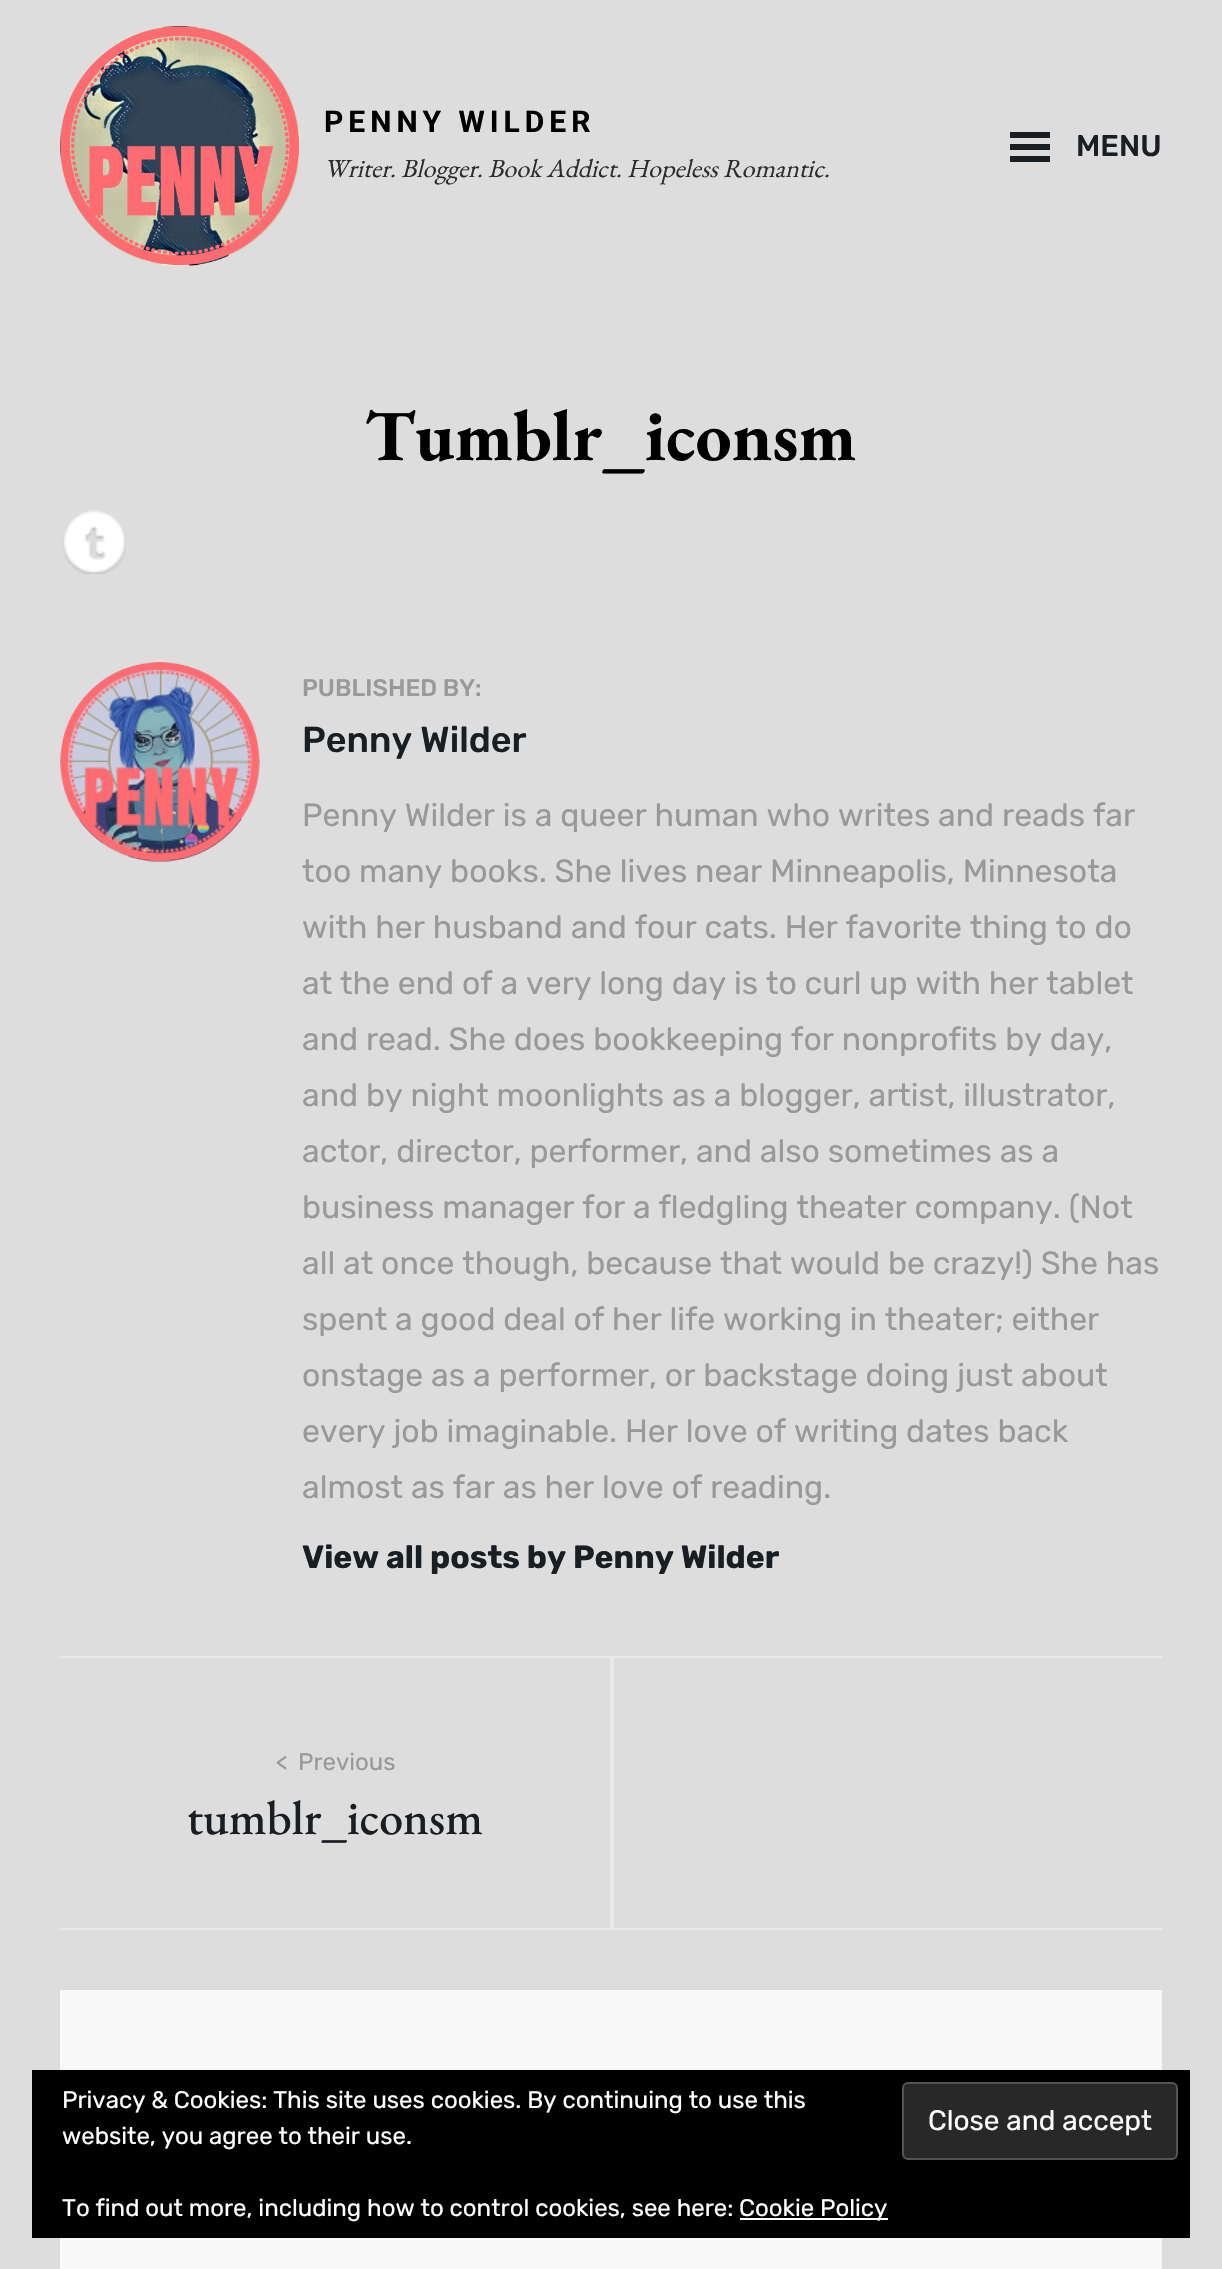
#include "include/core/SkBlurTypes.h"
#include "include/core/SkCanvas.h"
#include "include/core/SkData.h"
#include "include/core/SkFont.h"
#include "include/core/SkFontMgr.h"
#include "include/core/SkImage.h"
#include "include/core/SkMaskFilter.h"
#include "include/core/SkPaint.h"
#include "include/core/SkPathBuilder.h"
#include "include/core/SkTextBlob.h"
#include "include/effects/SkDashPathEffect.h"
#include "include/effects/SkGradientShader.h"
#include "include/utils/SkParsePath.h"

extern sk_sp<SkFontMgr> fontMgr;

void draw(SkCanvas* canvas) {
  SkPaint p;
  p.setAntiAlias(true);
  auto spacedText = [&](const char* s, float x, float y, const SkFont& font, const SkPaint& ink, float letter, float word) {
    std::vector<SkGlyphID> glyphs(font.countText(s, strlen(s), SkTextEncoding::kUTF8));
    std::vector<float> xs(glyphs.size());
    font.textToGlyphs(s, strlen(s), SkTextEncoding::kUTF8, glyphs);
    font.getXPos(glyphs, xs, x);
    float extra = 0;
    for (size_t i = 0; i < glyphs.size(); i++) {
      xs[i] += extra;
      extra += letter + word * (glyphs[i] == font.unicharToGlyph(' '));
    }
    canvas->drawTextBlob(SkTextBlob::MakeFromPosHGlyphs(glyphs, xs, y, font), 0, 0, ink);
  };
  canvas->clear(SkColorSetRGB(221, 221, 221));
  canvas->drawImageRect(SkImages::DeferredFromEncodedData(SkData::MakeFromFileName("images/1.png")), SkRect::MakeLTRB(60, 26, 300, 266), SkSamplingOptions());
  p.setColor(SkColorSetRGB(25, 30, 35));
  canvas->drawRect(SkRect::MakeLTRB(1010, 132, 1050, 138), p);
  canvas->drawRect(SkRect::MakeLTRB(1010, 144, 1050, 150), p);
  canvas->drawRect(SkRect::MakeLTRB(1010, 156, 1050, 162), p);
  canvas->drawImageRect(SkImages::DeferredFromEncodedData(SkData::MakeFromFileName("images/2.png")), SkRect::MakeLTRB(62, 510, 126, 574), SkSamplingOptions());
  canvas->drawImageRect(SkImages::DeferredFromEncodedData(SkData::MakeFromFileName("images/3.png")), SkRect::MakeLTRB(60, 662, 260, 862), SkSamplingOptions());
  p.setColor(SkColorSetRGB(233, 233, 233));
  canvas->drawRect(SkRect::MakeLTRB(60, 1656, 1162, 1658), p);
  canvas->drawRect(SkRect::MakeLTRB(60, 1928, 1162, 1930), p);
  canvas->drawRect(SkRect::MakeLTRB(610, 1658, 614, 1928), p);
  p.setColor(SkColorSetRGB(248, 248, 248));
  canvas->drawRect(SkRect::MakeLTRB(60, 1990, 1162, 2269), p);
  p.setColor(SK_ColorBLACK);
  canvas->drawRect(SkRect::MakeLTRB(32, 2070, 1190, 2238), p);
  p.setColor(SkColorSetRGB(40, 40, 40));
  canvas->drawRoundRect(SkRect::MakeLTRB(903, 2083, 1177, 2159), 5, 5, p);
  p.setStyle(SkPaint::kStroke_Style);
  p.setStrokeWidth(2);
  p.setColor(SkColorSetRGB(83, 83, 83));
  canvas->drawRoundRect(SkRect::MakeLTRB(903, 2083, 1177, 2159), 5, 5, p);
  p.setStyle(SkPaint::kFill_Style);
  p.setColor(SK_ColorWHITE);
  canvas->drawRect(SkRect::MakeLTRB(740, 2218, 888, 2220), p);
  SkFont font1(fontMgr->matchFamilyStyle("Roboto", SkFontStyle::Bold()), 30);
  font1.setSubpixel(true);
  p.setColor(SK_ColorBLACK);
  spacedText("PENNY WILDER", 324, 132, font1, p, 5, 0);
  SkFont font2(fontMgr->matchFamilyStyle("EB Garamond", SkFontStyle::Italic()), 26);
  font2.setSubpixel(true);
  p.setColor(SkColorSetRGB(44, 44, 44));
  canvas->drawString("Writer. Blogger. Book Addict. Hopeless Romantic.", 324, 177, font2, p);
  SkFont font3(fontMgr->matchFamilyStyle("Rubik", SkFontStyle(500, SkFontStyle::kNormal_Width, SkFontStyle::kUpright_Slant)), 30);
  font3.setSubpixel(true);
  p.setColor(SkColorSetRGB(25, 30, 35));
  canvas->drawString("MENU", 1076, 156, font3, p);
  SkFont font4(fontMgr->matchFamilyStyle("EB Garamond", SkFontStyle::Bold()), 72);
  font4.setSubpixel(true);
  p.setColor(SK_ColorBLACK);
  canvas->drawString("Tumblr_iconsm", 365, 460, font4, p);
  SkFont font5(fontMgr->matchFamilyStyle("Rubik", SkFontStyle(500, SkFontStyle::kNormal_Width, SkFontStyle::kUpright_Slant)), 24);
  font5.setSubpixel(true);
  p.setColor(SkColorSetRGB(153, 153, 153));
  canvas->drawString("PUBLISHED BY:", 302, 696, font5, p);
  SkFont font6(fontMgr->matchFamilyStyle("Rubik", SkFontStyle(500, SkFontStyle::kNormal_Width, SkFontStyle::kUpright_Slant)), 36);
  font6.setSubpixel(true);
  p.setColor(SkColorSetRGB(25, 30, 35));
  canvas->drawString("Penny Wilder", 302, 752, font6, p);
  SkFont font7(fontMgr->matchFamilyStyle("Rubik", SkFontStyle::Normal()), 32);
  font7.setSubpixel(true);
  p.setColor(SkColorSetRGB(153, 153, 153));
  canvas->drawString("Penny Wilder is a queer human who writes and reads far", 302, 826, font7, p);
  canvas->drawString("too many books. She lives near Minneapolis, Minnesota", 302, 882, font7, p);
  canvas->drawString("with her husband and four cats. Her favorite thing to do", 302, 938, font7, p);
  canvas->drawString("at the end of a very long day is to curl up with her tablet", 302, 994, font7, p);
  canvas->drawString("and read. She does bookkeeping for nonprofits by day,", 302, 1050, font7, p);
  canvas->drawString("and by night moonlights as a blogger, artist, illustrator,", 302, 1106, font7, p);
  canvas->drawString("actor, director, performer, and also sometimes as a", 302, 1162, font7, p);
  canvas->drawString("business manager for a fledgling theater company. (Not", 302, 1218, font7, p);
  canvas->drawString("all at once though, because that would be crazy!) She has", 302, 1274, font7, p);
  canvas->drawString("spent a good deal of her life working in theater; either", 302, 1330, font7, p);
  canvas->drawString("onstage as a performer, or backstage doing just about", 302, 1386, font7, p);
  canvas->drawString("every job imaginable. Her love of writing dates back", 302, 1442, font7, p);
  canvas->drawString("almost as far as her love of reading.", 302, 1498, font7, p);
  SkFont font8(fontMgr->matchFamilyStyle("Rubik", SkFontStyle::Bold()), 32);
  font8.setSubpixel(true);
  p.setColor(SkColorSetRGB(25, 30, 35));
  canvas->drawString("View all posts by Penny Wilder", 302, 1568, font8, p);
  SkFont font9(fontMgr->matchFamilyStyle("Rubik", SkFontStyle::Normal()), 24);
  font9.setSubpixel(true);
  p.setColor(SkColorSetRGB(153, 153, 153));
  canvas->drawString("<", 276, 1770, font9, p);
  canvas->drawString("Previous", 298, 1770, font9, p);
  SkFont font10(fontMgr->matchFamilyStyle("EB Garamond", SkFontStyle(500, SkFontStyle::kNormal_Width, SkFontStyle::kUpright_Slant)), 48);
  font10.setSubpixel(true);
  p.setColor(SkColorSetRGB(25, 30, 35));
  canvas->drawString("tumblr_iconsm", 187, 1834, font10, p);
  p.setColor(SK_ColorWHITE);
  canvas->drawString("Privacy & Cookies: This site uses cookies. By continuing to use this", 62, 2108, font9, p);
  canvas->drawString("website, you agree to their use.", 62, 2144, font9, p);
  SkFont font11(fontMgr->matchFamilyStyle("Rubik", SkFontStyle::Normal()), 28);
  font11.setSubpixel(true);
  canvas->drawString("Close and accept", 928, 2130, font11, p);
  canvas->drawString("To find out more, including how to control cookies, see here:", 62, 2216, font9, p);
  canvas->drawString("Cookie Policy", 739, 2216, font9, p);
}
